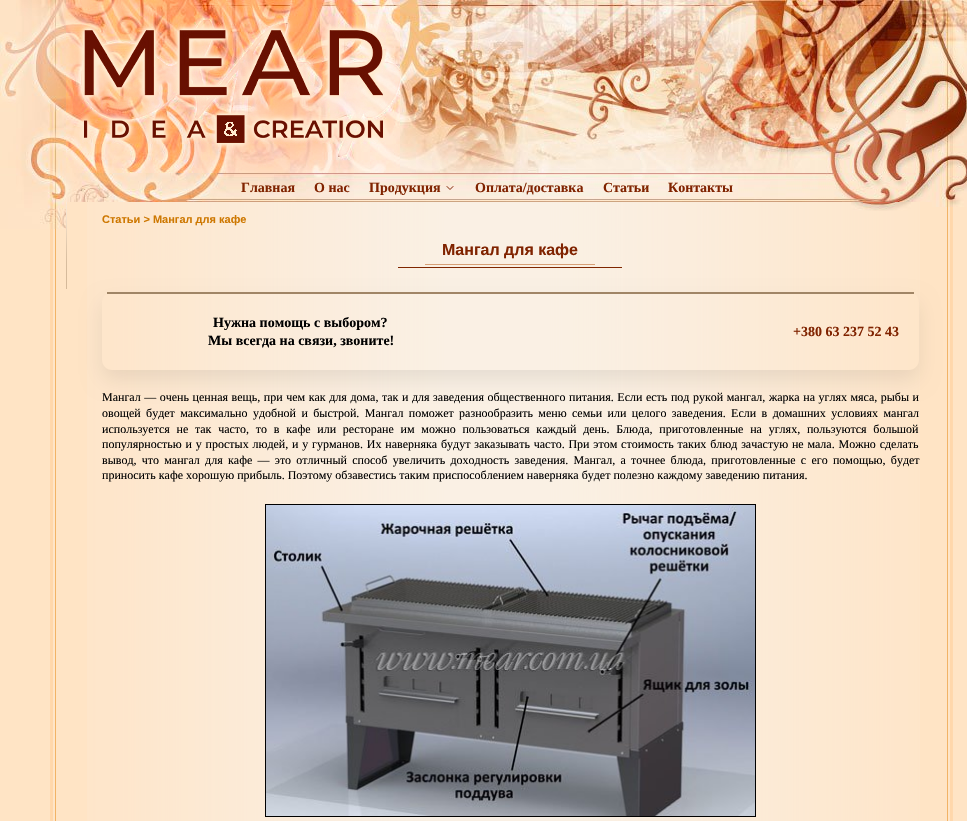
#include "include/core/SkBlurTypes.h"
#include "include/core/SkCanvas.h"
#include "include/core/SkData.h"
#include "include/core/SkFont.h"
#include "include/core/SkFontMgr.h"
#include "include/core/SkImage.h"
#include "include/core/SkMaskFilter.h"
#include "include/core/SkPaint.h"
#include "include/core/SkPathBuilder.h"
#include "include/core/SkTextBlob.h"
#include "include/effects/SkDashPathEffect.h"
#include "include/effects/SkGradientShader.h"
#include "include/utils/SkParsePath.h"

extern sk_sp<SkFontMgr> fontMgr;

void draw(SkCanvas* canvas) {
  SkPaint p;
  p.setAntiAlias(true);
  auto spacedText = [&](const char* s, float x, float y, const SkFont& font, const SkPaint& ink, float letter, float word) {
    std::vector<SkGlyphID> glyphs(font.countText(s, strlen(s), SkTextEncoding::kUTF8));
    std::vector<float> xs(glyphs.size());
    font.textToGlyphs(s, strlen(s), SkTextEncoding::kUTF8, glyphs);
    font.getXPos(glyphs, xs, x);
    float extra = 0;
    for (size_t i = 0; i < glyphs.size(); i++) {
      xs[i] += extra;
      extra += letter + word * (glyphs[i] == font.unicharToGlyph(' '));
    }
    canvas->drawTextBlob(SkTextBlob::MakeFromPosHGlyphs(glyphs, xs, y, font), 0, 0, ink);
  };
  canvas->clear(SkColorSetRGB(255, 228, 197));
  canvas->drawImageRect(SkImages::DeferredFromEncodedData(SkData::MakeFromFileName("images/1.png")), SkRect::MakeLTRB(50, 229, 56, 821), SkSamplingOptions());
  canvas->drawImageRect(SkImages::DeferredFromEncodedData(SkData::MakeFromFileName("images/2.png")), SkRect::MakeLTRB(0, 0, 66, 229), SkSamplingOptions());
  canvas->drawImageRect(SkImages::DeferredFromEncodedData(SkData::MakeFromFileName("images/3.png")), SkRect::MakeLTRB(87, 202, 920, 821), SkSamplingOptions());
  canvas->drawImageRect(SkImages::DeferredFromEncodedData(SkData::MakeFromFileName("images/4.png")), SkRect::MakeLTRB(66, 0, 400, 173), SkSamplingOptions());
  canvas->drawImageRect(SkImages::DeferredFromEncodedData(SkData::MakeFromFileName("images/5.png")), SkRect::MakeLTRB(400, 0, 666, 173), SkSamplingOptions());
  canvas->drawImageRect(SkImages::DeferredFromEncodedData(SkData::MakeFromFileName("images/6.png")), SkRect::MakeLTRB(666, 0, 932, 173), SkSamplingOptions());
  canvas->drawImageRect(SkImages::DeferredFromEncodedData(SkData::MakeFromFileName("images/7.png")), SkRect::MakeLTRB(66, 173, 932, 202), SkSamplingOptions());
  p.setStyle(SkPaint::kStroke_Style);
  p.setStrokeWidth(1);
  p.setStrokeCap(SkPaint::kRound_Cap);
  p.setStrokeJoin(SkPaint::kRound_Join);
  p.setColor(SkColorSetRGB(128, 35, 0));
  canvas->drawPath(SkPathBuilder().moveTo(447, 186.5f).lineTo(450, 189.5f).lineTo(453, 186.5f).detach(), p);
  canvas->drawImageRect(SkImages::DeferredFromEncodedData(SkData::MakeFromFileName("images/8.png")), SkRect::MakeLTRB(66, 202, 67, 289), SkSamplingOptions());
  canvas->drawImageRect(SkImages::DeferredFromEncodedData(SkData::MakeFromFileName("images/9.png")), SkRect::MakeLTRB(851, 202, 911, 211), SkSamplingOptions());
  p.setStyle(SkPaint::kFill_Style);
  p.setColor(SkColorSetRGB(127, 38, 0));
  canvas->drawRect(SkRect::MakeLTRB(398, 267, 622, 268), p);
  p.setColor(SkColorSetRGB(215, 160, 119));
  canvas->drawRect(SkRect::MakeLTRB(425, 264, 595, 265), p);
  canvas->drawImageRect(SkImages::DeferredFromEncodedData(SkData::MakeFromFileName("images/11.png")), SkRect::MakeLTRB(947, 207, 953, 821), SkSamplingOptions());
  canvas->save();
  canvas->clipPath(SkPathBuilder(SkPathFillType::kEvenOdd).moveTo(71, 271).lineTo(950, 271).lineTo(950, 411).lineTo(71, 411).close().moveTo(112, 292).lineTo(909, 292).cubicTo(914.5f, 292, 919, 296.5f, 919, 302).lineTo(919, 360).cubicTo(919, 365.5f, 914.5f, 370, 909, 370).lineTo(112, 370).cubicTo(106.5f, 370, 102, 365.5f, 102, 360).lineTo(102, 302).cubicTo(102, 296.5f, 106.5f, 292, 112, 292).close().detach(), true);
  p.setColor(SkColorSetARGB(20, 0, 0, 0));
  p.setMaskFilter(SkMaskFilter::MakeBlur(kNormal_SkBlurStyle, 10));
  canvas->drawRoundRect(SkRect::MakeLTRB(102, 302, 919, 380), 10, 10, p);
  p.setMaskFilter(nullptr);
  canvas->restore();
  p.setColor(SkColorSetRGB(160, 133, 102));
  canvas->drawRect(SkRect::MakeLTRB(107, 292, 914, 294), p);
  p.setStyle(SkPaint::kStroke_Style);
  p.setStrokeCap(SkPaint::kButt_Cap);
  p.setStrokeJoin(SkPaint::kMiter_Join);
  p.setColor(SK_ColorBLACK);
  canvas->drawRect(SkRect::MakeLTRB(265.5f, 504.5f, 755.5f, 816.5f), p);
  canvas->drawImageRect(SkImages::DeferredFromEncodedData(SkData::MakeFromFileName("images/10.png")), SkRect::MakeLTRB(266, 505, 755, 816), SkSamplingOptions());
  canvas->drawImageRect(SkImages::DeferredFromEncodedData(SkData::MakeFromFileName("images/12.png")), SkRect::MakeLTRB(932, 0, 967, 207), SkSamplingOptions());
  SkFont font1(fontMgr->matchFamilyStyle("Liberation Serif", SkFontStyle::Bold()), 14);
  font1.setSubpixel(true);
  p.setStyle(SkPaint::kFill_Style);
  p.setColor(SkColorSetRGB(128, 35, 0));
  canvas->drawString("Главная", 241, 192, font1, p);
  canvas->drawString("О нас", 314, 192, font1, p);
  canvas->drawString("Продукция", 369, 192, font1, p);
  canvas->drawString("Оплата/доставка", 475, 192, font1, p);
  canvas->drawString("Статьи", 603, 192, font1, p);
  canvas->drawString("Контакты", 668, 192, font1, p);
  SkFont font2(fontMgr->matchFamilyStyle("Liberation Sans", SkFontStyle::Bold()), 11);
  font2.setSubpixel(true);
  p.setColor(SkColorSetRGB(206, 120, 1));
  canvas->drawString("Статьи > Мангал для кафе", 102, 223, font2, p);
  SkFont font3(fontMgr->matchFamilyStyle("Liberation Sans", SkFontStyle::Bold()), 16);
  font3.setSubpixel(true);
  p.setColor(SkColorSetRGB(128, 35, 0));
  canvas->drawString("Мангал для кафе", 442, 255, font3, p);
  p.setColor(SK_ColorBLACK);
  canvas->drawString("Нужна помощь с выбором?", 213, 327, font1, p);
  canvas->drawString("Мы всегда на связи, звоните!", 208, 345, font1, p);
  p.setColor(SkColorSetRGB(128, 35, 0));
  canvas->drawString("+380 63 237 52 43", 793, 336, font1, p);
  SkFont font4(fontMgr->matchFamilyStyle("Liberation Serif", SkFontStyle::Normal()), 12);
  font4.setSubpixel(true);
  p.setColor(SK_ColorBLACK);
  spacedText("Мангал — очень ценная вещь, при чем как для дома, так и для заведения общественного питания. Если есть под рукой мангал, жарка на углях мяса, рыбы и", 102, 401, font4, p, 0, 0.55f);
  spacedText("овощей будет максимально удобной и быстрой. Мангал поможет разнообразить меню семьи или целого заведения. Если в домашних условиях мангал", 102, 417, font4, p, 0, 2.4f);
  spacedText("используется не так часто, то в кафе или ресторане им можно пользоваться каждый день. Блюда, приготовленные на углях, пользуются большой", 102, 433, font4, p, 0, 3.75f);
  spacedText("популярностью и у простых людей, и у гурманов. Их наверняка будут заказывать часто. При этом стоимость таких блюд зачастую не мала. Можно сделать", 102, 448, font4, p, 0, 0.8f);
  spacedText("вывод, что мангал для кафе — это отличный способ увеличить доходность заведения. Мангал, а точнее блюда, приготовленные с его помощью, будет", 102, 464, font4, p, 0, 2.25f);
  canvas->drawString("приносить кафе хорошую прибыль. Поэтому обзавестись таким приспособлением наверняка будет полезно каждому заведению питания.", 102, 479, font4, p);
}
